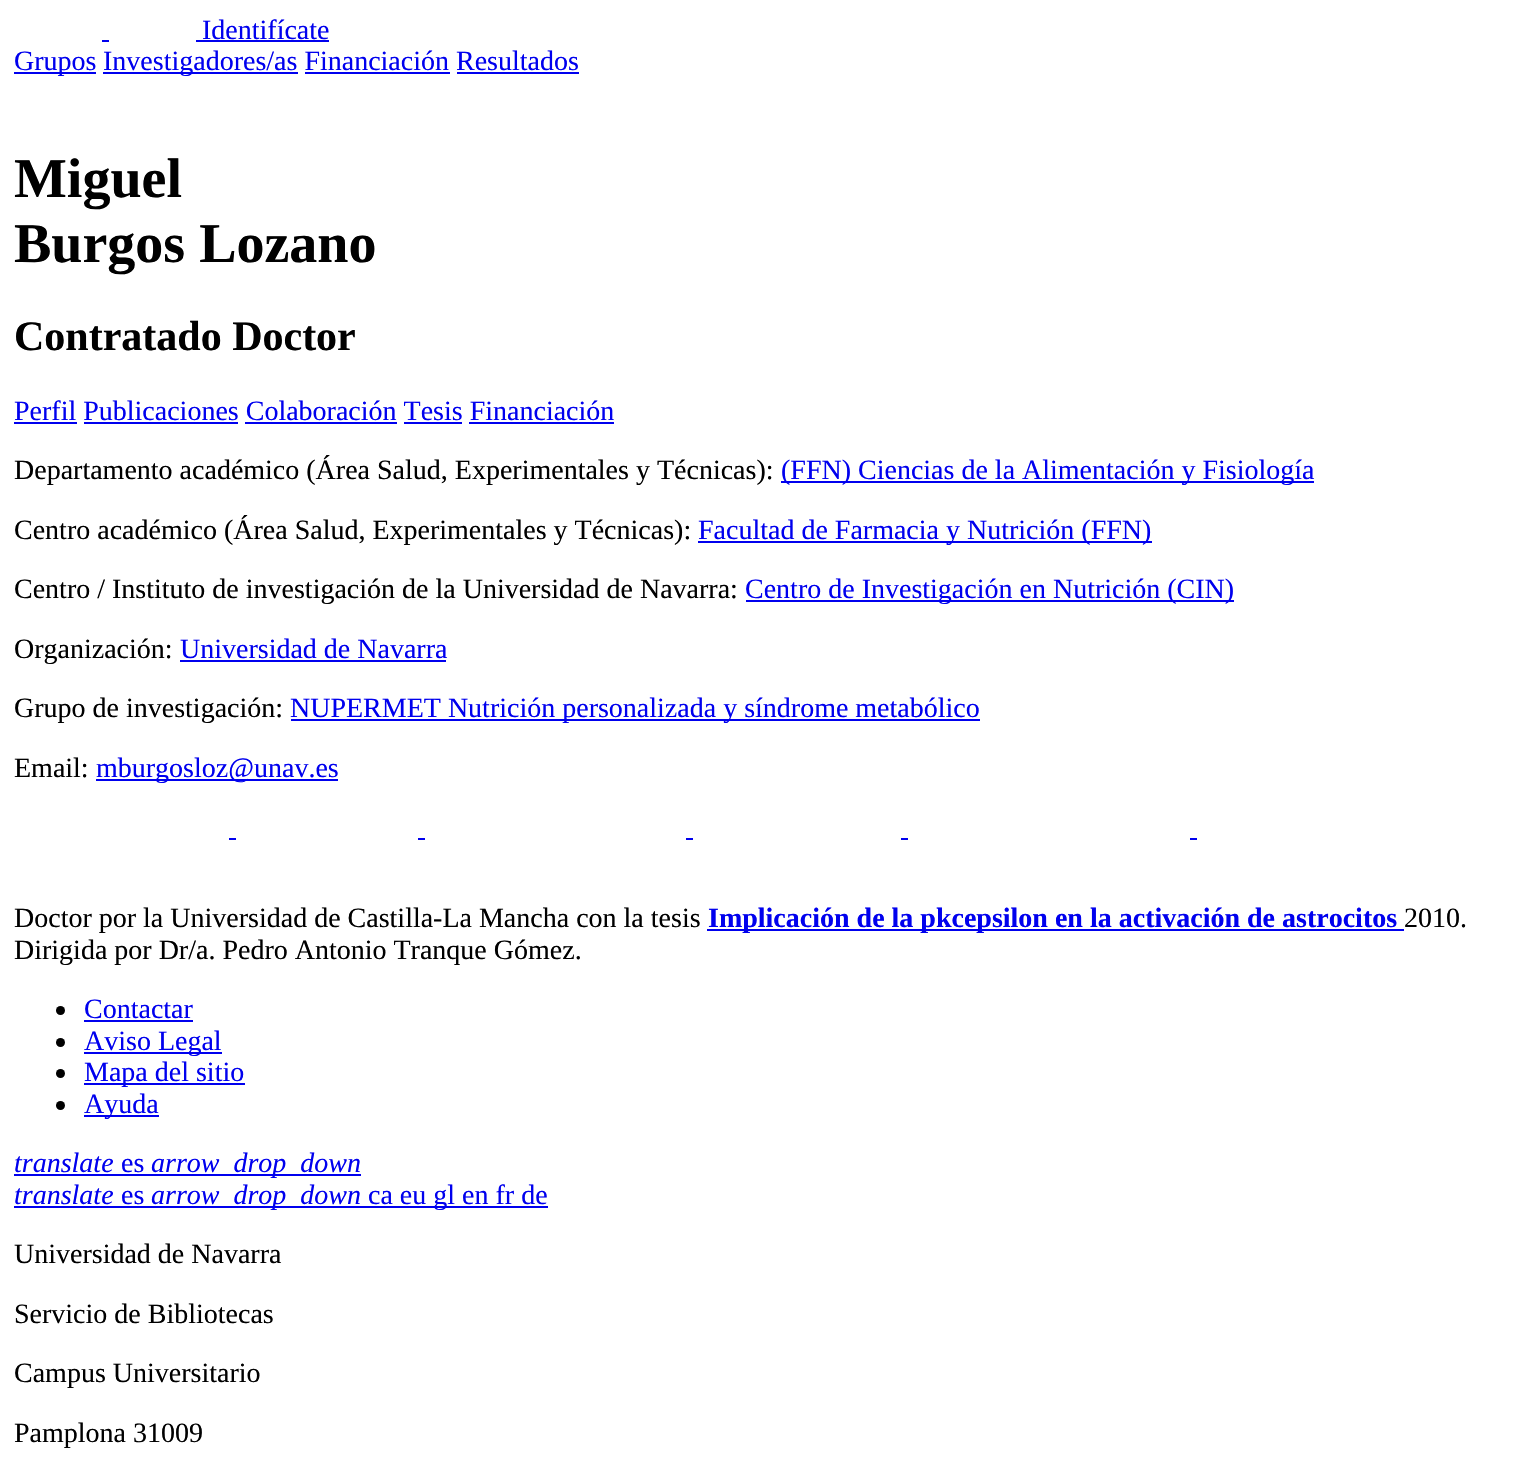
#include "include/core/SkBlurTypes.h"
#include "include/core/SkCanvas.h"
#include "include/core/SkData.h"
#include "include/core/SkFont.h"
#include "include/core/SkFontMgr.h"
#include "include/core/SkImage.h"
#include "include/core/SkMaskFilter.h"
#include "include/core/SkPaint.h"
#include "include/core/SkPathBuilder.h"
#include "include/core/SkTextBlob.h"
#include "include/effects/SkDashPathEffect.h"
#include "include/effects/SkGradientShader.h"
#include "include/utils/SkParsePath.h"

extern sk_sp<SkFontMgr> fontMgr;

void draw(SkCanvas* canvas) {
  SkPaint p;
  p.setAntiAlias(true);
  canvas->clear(SK_ColorWHITE);
  p.setColor(SkColorSetRGB(0, 0, 238));
  canvas->drawRect(SkRect::MakeLTRB(102, 40, 109, 42), p);
  canvas->drawRect(SkRect::MakeLTRB(196, 40, 329, 42), p);
  canvas->drawRect(SkRect::MakeLTRB(14, 72, 96, 74), p);
  canvas->drawRect(SkRect::MakeLTRB(103, 72, 298, 74), p);
  canvas->drawRect(SkRect::MakeLTRB(305, 72, 450, 74), p);
  canvas->drawRect(SkRect::MakeLTRB(457, 72, 579, 74), p);
  canvas->drawRect(SkRect::MakeLTRB(14, 422, 77, 424), p);
  canvas->drawRect(SkRect::MakeLTRB(84, 422, 238, 424), p);
  canvas->drawRect(SkRect::MakeLTRB(245, 422, 397, 424), p);
  canvas->drawRect(SkRect::MakeLTRB(404, 422, 462, 424), p);
  canvas->drawRect(SkRect::MakeLTRB(469, 422, 614, 424), p);
  canvas->drawRect(SkRect::MakeLTRB(781, 481, 1314, 483), p);
  canvas->drawRect(SkRect::MakeLTRB(698, 541, 1152, 543), p);
  canvas->drawRect(SkRect::MakeLTRB(746, 600, 1234, 602), p);
  canvas->drawRect(SkRect::MakeLTRB(180, 660, 446, 662), p);
  canvas->drawRect(SkRect::MakeLTRB(291, 719, 980, 721), p);
  canvas->drawRect(SkRect::MakeLTRB(96, 779, 338, 781), p);
  canvas->drawRect(SkRect::MakeLTRB(229, 838, 236, 840), p);
  canvas->drawRect(SkRect::MakeLTRB(418, 838, 425, 840), p);
  canvas->drawRect(SkRect::MakeLTRB(686, 838, 693, 840), p);
  canvas->drawRect(SkRect::MakeLTRB(901, 838, 908, 840), p);
  canvas->drawRect(SkRect::MakeLTRB(1190, 838, 1197, 840), p);
  canvas->drawRect(SkRect::MakeLTRB(707, 929, 1404, 931), p);
  p.setColor(SK_ColorBLACK);
  canvas->drawCircle(60.5f, 1010.5f, 4.5f, p);
  p.setColor(SkColorSetRGB(0, 0, 238));
  canvas->drawRect(SkRect::MakeLTRB(84, 1020, 193, 1022), p);
  p.setColor(SK_ColorBLACK);
  canvas->drawCircle(60.5f, 1042.5f, 4.5f, p);
  p.setColor(SkColorSetRGB(0, 0, 238));
  canvas->drawRect(SkRect::MakeLTRB(84, 1052, 222, 1054), p);
  p.setColor(SK_ColorBLACK);
  canvas->drawCircle(60.5f, 1073.5f, 4.5f, p);
  p.setColor(SkColorSetRGB(0, 0, 238));
  canvas->drawRect(SkRect::MakeLTRB(84, 1083, 245, 1085), p);
  p.setColor(SK_ColorBLACK);
  canvas->drawCircle(60.5f, 1105.5f, 4.5f, p);
  p.setColor(SkColorSetRGB(0, 0, 238));
  canvas->drawRect(SkRect::MakeLTRB(84, 1115, 159, 1117), p);
  canvas->drawRect(SkRect::MakeLTRB(14, 1174, 361, 1176), p);
  canvas->drawRect(SkRect::MakeLTRB(14, 1206, 548, 1208), p);
  SkFont font1(fontMgr->matchFamilyStyle("Liberation Serif", SkFontStyle::Normal()), 28);
  font1.setSubpixel(true);
  canvas->drawString("Identifícate", 202, 39, font1, p);
  canvas->drawString("Grupos", 14, 70, font1, p);
  canvas->drawString("Investigadores/as Financiación Resultados", 103, 70, font1, p);
  SkFont font2(fontMgr->matchFamilyStyle("Liberation Serif", SkFontStyle::Bold()), 56);
  font2.setSubpixel(true);
  p.setColor(SK_ColorBLACK);
  canvas->drawString("Miguel", 14, 197, font2, p);
  canvas->drawString("Burgos Lozano", 14, 262, font2, p);
  SkFont font3(fontMgr->matchFamilyStyle("Liberation Serif", SkFontStyle::Bold()), 42);
  font3.setSubpixel(true);
  canvas->drawString("Contratado Doctor", 14, 350, font3, p);
  p.setColor(SkColorSetRGB(0, 0, 238));
  canvas->drawString("Perfil Publicaciones Colaboración Tesis Financiación", 14, 420, font1, p);
  p.setColor(SK_ColorBLACK);
  canvas->drawString("Departamento académico (Área Salud, Experimentales y Técnicas):", 14, 479, font1, p);
  p.setColor(SkColorSetRGB(0, 0, 238));
  canvas->drawString("(FFN) Ciencias de la Alimentación y Fisiología", 781, 479, font1, p);
  p.setColor(SK_ColorBLACK);
  canvas->drawString("Centro académico (Área Salud, Experimentales y Técnicas):", 14, 539, font1, p);
  p.setColor(SkColorSetRGB(0, 0, 238));
  canvas->drawString("Facultad de Farmacia y Nutrición (FFN)", 698, 539, font1, p);
  p.setColor(SK_ColorBLACK);
  canvas->drawString("Centro / Instituto de investigación de la Universidad de Navarra:", 14, 598, font1, p);
  p.setColor(SkColorSetRGB(0, 0, 238));
  canvas->drawString("Centro de Investigación en Nutrición (CIN)", 745, 598, font1, p);
  p.setColor(SK_ColorBLACK);
  canvas->drawString("Organización:", 14, 658, font1, p);
  p.setColor(SkColorSetRGB(0, 0, 238));
  canvas->drawString("Universidad de Navarra", 180, 658, font1, p);
  p.setColor(SK_ColorBLACK);
  canvas->drawString("Grupo de investigación:", 14, 717, font1, p);
  p.setColor(SkColorSetRGB(0, 0, 238));
  canvas->drawString("NUPERMET Nutrición personalizada y síndrome metabólico", 290, 717, font1, p);
  p.setColor(SK_ColorBLACK);
  canvas->drawString("Email:", 14, 777, font1, p);
  p.setColor(SkColorSetRGB(0, 0, 238));
  canvas->drawString("mburgosloz@unav.es", 96, 777, font1, p);
  p.setColor(SK_ColorBLACK);
  canvas->drawString("Doctor por la Universidad de Castilla-La Mancha con la tesis", 14, 927, font1, p);
  SkFont font4(fontMgr->matchFamilyStyle("Liberation Serif", SkFontStyle::Bold()), 28);
  font4.setSubpixel(true);
  p.setColor(SkColorSetRGB(0, 0, 238));
  canvas->drawString("Implicación de la pkcepsilon en la activación de astrocitos", 708, 927, font4, p);
  p.setColor(SK_ColorBLACK);
  canvas->drawString("2010.", 1404, 927, font1, p);
  canvas->drawString("Dirigida por Dr/a. Pedro Antonio Tranque Gómez.", 14, 959, font1, p);
  p.setColor(SkColorSetRGB(0, 0, 238));
  canvas->drawString("Contactar", 84, 1018, font1, p);
  canvas->drawString("Aviso Legal", 84, 1050, font1, p);
  canvas->drawString("Mapa del sitio", 84, 1081, font1, p);
  canvas->drawString("Ayuda", 84, 1113, font1, p);
  SkFont font5(fontMgr->matchFamilyStyle("Liberation Serif", SkFontStyle::Italic()), 28);
  font5.setSubpixel(true);
  canvas->drawString("translate", 14, 1172, font5, p);
  canvas->drawString("es", 121, 1172, font1, p);
  canvas->drawString("arrow_drop_down", 151, 1172, font5, p);
  canvas->drawString("translate", 14, 1204, font5, p);
  canvas->drawString("es", 121, 1204, font1, p);
  canvas->drawString("arrow_drop_down", 151, 1204, font5, p);
  canvas->drawString("ca eu gl en fr de", 368, 1204, font1, p);
  p.setColor(SK_ColorBLACK);
  canvas->drawString("Universidad de Navarra", 14, 1263, font1, p);
  canvas->drawString("Servicio de Bibliotecas", 14, 1323, font1, p);
  canvas->drawString("Campus Universitario", 14, 1382, font1, p);
  canvas->drawString("Pamplona 31009", 14, 1442, font1, p);
}
